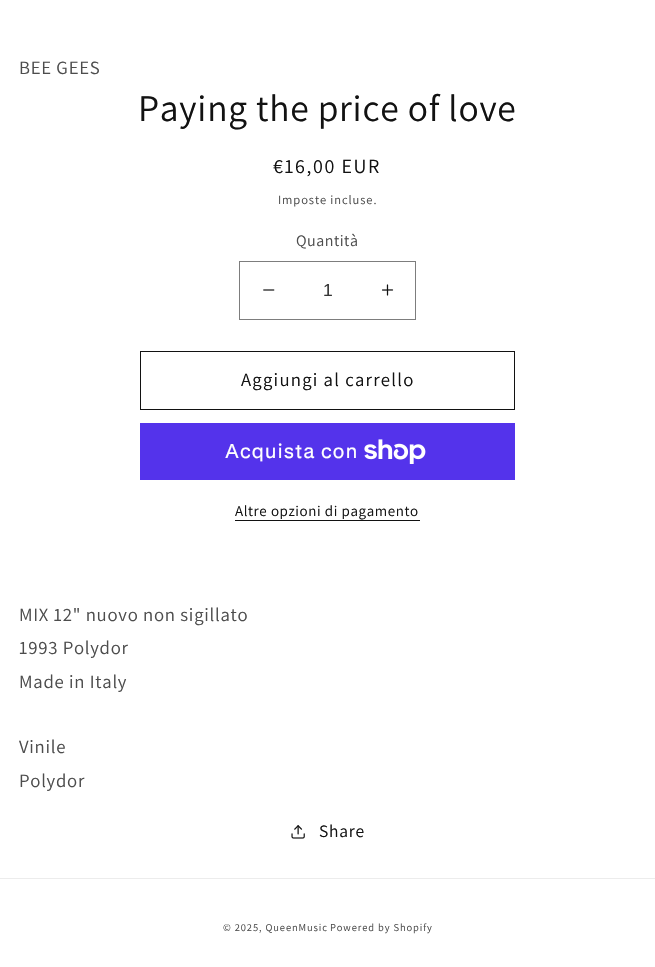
#include "include/core/SkBlurTypes.h"
#include "include/core/SkCanvas.h"
#include "include/core/SkData.h"
#include "include/core/SkFont.h"
#include "include/core/SkFontMgr.h"
#include "include/core/SkImage.h"
#include "include/core/SkMaskFilter.h"
#include "include/core/SkPaint.h"
#include "include/core/SkPathBuilder.h"
#include "include/core/SkTextBlob.h"
#include "include/effects/SkDashPathEffect.h"
#include "include/effects/SkGradientShader.h"
#include "include/utils/SkParsePath.h"

extern sk_sp<SkFontMgr> fontMgr;

void draw(SkCanvas* canvas) {
  SkPaint p;
  p.setAntiAlias(true);
  auto spacedText = [&](const char* s, float x, float y, const SkFont& font, const SkPaint& ink, float letter, float word) {
    std::vector<SkGlyphID> glyphs(font.countText(s, strlen(s), SkTextEncoding::kUTF8));
    std::vector<float> xs(glyphs.size());
    font.textToGlyphs(s, strlen(s), SkTextEncoding::kUTF8, glyphs);
    font.getXPos(glyphs, xs, x);
    float extra = 0;
    for (size_t i = 0; i < glyphs.size(); i++) {
      xs[i] += extra;
      extra += letter + word * (glyphs[i] == font.unicharToGlyph(' '));
    }
    canvas->drawTextBlob(SkTextBlob::MakeFromPosHGlyphs(glyphs, xs, y, font), 0, 0, ink);
  };
  canvas->clear(SK_ColorWHITE);
  canvas->drawImageRect(SkImages::DeferredFromEncodedData(SkData::MakeFromFileName("images/1.png")), SkRect::MakeLTRB(263, 289, 275, 291), SkSamplingOptions());
  canvas->drawImageRect(SkImages::DeferredFromEncodedData(SkData::MakeFromFileName("images/2.png")), SkRect::MakeLTRB(382, 284, 394, 296), SkSamplingOptions());
  p.setStyle(SkPaint::kStroke_Style);
  p.setStrokeWidth(1);
  p.setColor(SkColorSetRGB(125, 125, 125));
  canvas->drawRect(SkRect::MakeLTRB(239.5f, 261.5f, 415.5f, 319.5f), p);
  p.setColor(SkColorSetRGB(18, 18, 18));
  canvas->drawRect(SkRect::MakeLTRB(140.5f, 351.5f, 514.5f, 409.5f), p);
  p.setStyle(SkPaint::kFill_Style);
  p.setColor(SkColorSetRGB(84, 51, 235));
  canvas->drawRect(SkRect::MakeLTRB(140, 423, 515, 480), p);
  canvas->drawImageRect(SkImages::DeferredFromEncodedData(SkData::MakeFromFileName("images/3.png")), SkRect::MakeLTRB(364, 439, 426, 464), SkSamplingOptions());
  p.setColor(SkColorSetRGB(18, 18, 18));
  canvas->drawRect(SkRect::MakeLTRB(235, 520, 420, 521), p);
  canvas->drawImageRect(SkImages::DeferredFromEncodedData(SkData::MakeFromFileName("images/4.png")), SkRect::MakeLTRB(291, 825, 305, 839), SkSamplingOptions());
  p.setColor(SkColorSetRGB(236, 236, 236));
  canvas->drawRect(SkRect::MakeLTRB(0, 878, 655, 879), p);
  SkFont font1(fontMgr->matchFamilyStyle("Assistant", SkFontStyle::Normal()), 18.75f);
  font1.setSubpixel(true);
  p.setColor(SkColorSetRGB(77, 77, 77));
  spacedText("BEE GEES", 19, 74, font1, p, 0.75f, 0);
  SkFont font2(fontMgr->matchFamilyStyle("Assistant", SkFontStyle::Normal()), 37.5f);
  font2.setSubpixel(true);
  p.setColor(SkColorSetRGB(18, 18, 18));
  spacedText("Paying the price of love", 138, 121, font2, p, 0.75f, 0);
  SkFont font3(fontMgr->matchFamilyStyle("Assistant", SkFontStyle::Normal()), 20);
  font3.setSubpixel(true);
  spacedText("€16,00 EUR", 273, 173, font3, p, 1.6f, 0);
  SkFont font4(fontMgr->matchFamilyStyle("Assistant", SkFontStyle::Normal()), 12.5f);
  font4.setSubpixel(true);
  p.setColor(SkColorSetRGB(77, 77, 77));
  spacedText("Imposte incluse.", 278, 204, font4, p, 0.9f, 0);
  SkFont font5(fontMgr->matchFamilyStyle("Assistant", SkFontStyle::Normal()), 16);
  font5.setSubpixel(true);
  spacedText("Quantità", 296, 246, font5, p, 0.5f, 0);
  SkFont font6(fontMgr->matchFamilyStyle("Liberation Sans", SkFontStyle::Normal()), 17.5f);
  font6.setSubpixel(true);
  p.setColor(SkColorSetRGB(54, 54, 54));
  canvas->drawString("1", 323, 296, font6, p);
  p.setColor(SkColorSetRGB(18, 18, 18));
  spacedText("Aggiungi al carrello", 241, 386, font1, p, 1.25f, 0);
  SkFont font7(fontMgr->matchFamilyStyle("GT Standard", SkFontStyle::Normal()), 20);
  font7.setSubpixel(true);
  p.setColor(SK_ColorWHITE);
  spacedText("Acquista con", 225, 458, font7, p, 0.75f, 0);
  SkFont font8(fontMgr->matchFamilyStyle("Assistant", SkFontStyle::Normal()), 15);
  font8.setSubpixel(true);
  p.setColor(SkColorSetRGB(18, 18, 18));
  spacedText("Altre opzioni di pagamento", 235, 516, font8, p, 0.6f, 0);
  p.setColor(SkColorSetRGB(77, 77, 77));
  spacedText("MIX 12\" nuovo non sigillato", 19, 621, font1, p, 0.75f, 0);
  spacedText("1993 Polydor", 19, 654, font1, p, 0.75f, 0);
  spacedText("Made in Italy", 19, 688, font1, p, 0.75f, 0);
  spacedText("Vinile", 19, 753, font1, p, 0.75f, 0);
  spacedText("Polydor", 19, 787, font1, p, 0.75f, 0);
  SkFont font9(fontMgr->matchFamilyStyle("Assistant", SkFontStyle::Normal()), 17.5f);
  font9.setSubpixel(true);
  p.setColor(SkColorSetRGB(18, 18, 18));
  spacedText("Share", 319, 837, font9, p, 0.75f, 0);
  SkFont font10(fontMgr->matchFamilyStyle("Assistant", SkFontStyle::Normal()), 10.5f);
  font10.setSubpixel(true);
  p.setColor(SkColorSetRGB(77, 77, 77));
  spacedText("© 2025, QueenMusic", 223, 931, font10, p, 0.9f, 0);
  spacedText("Powered by Shopify", 330, 931, font10, p, 0.9f, 0);
}
